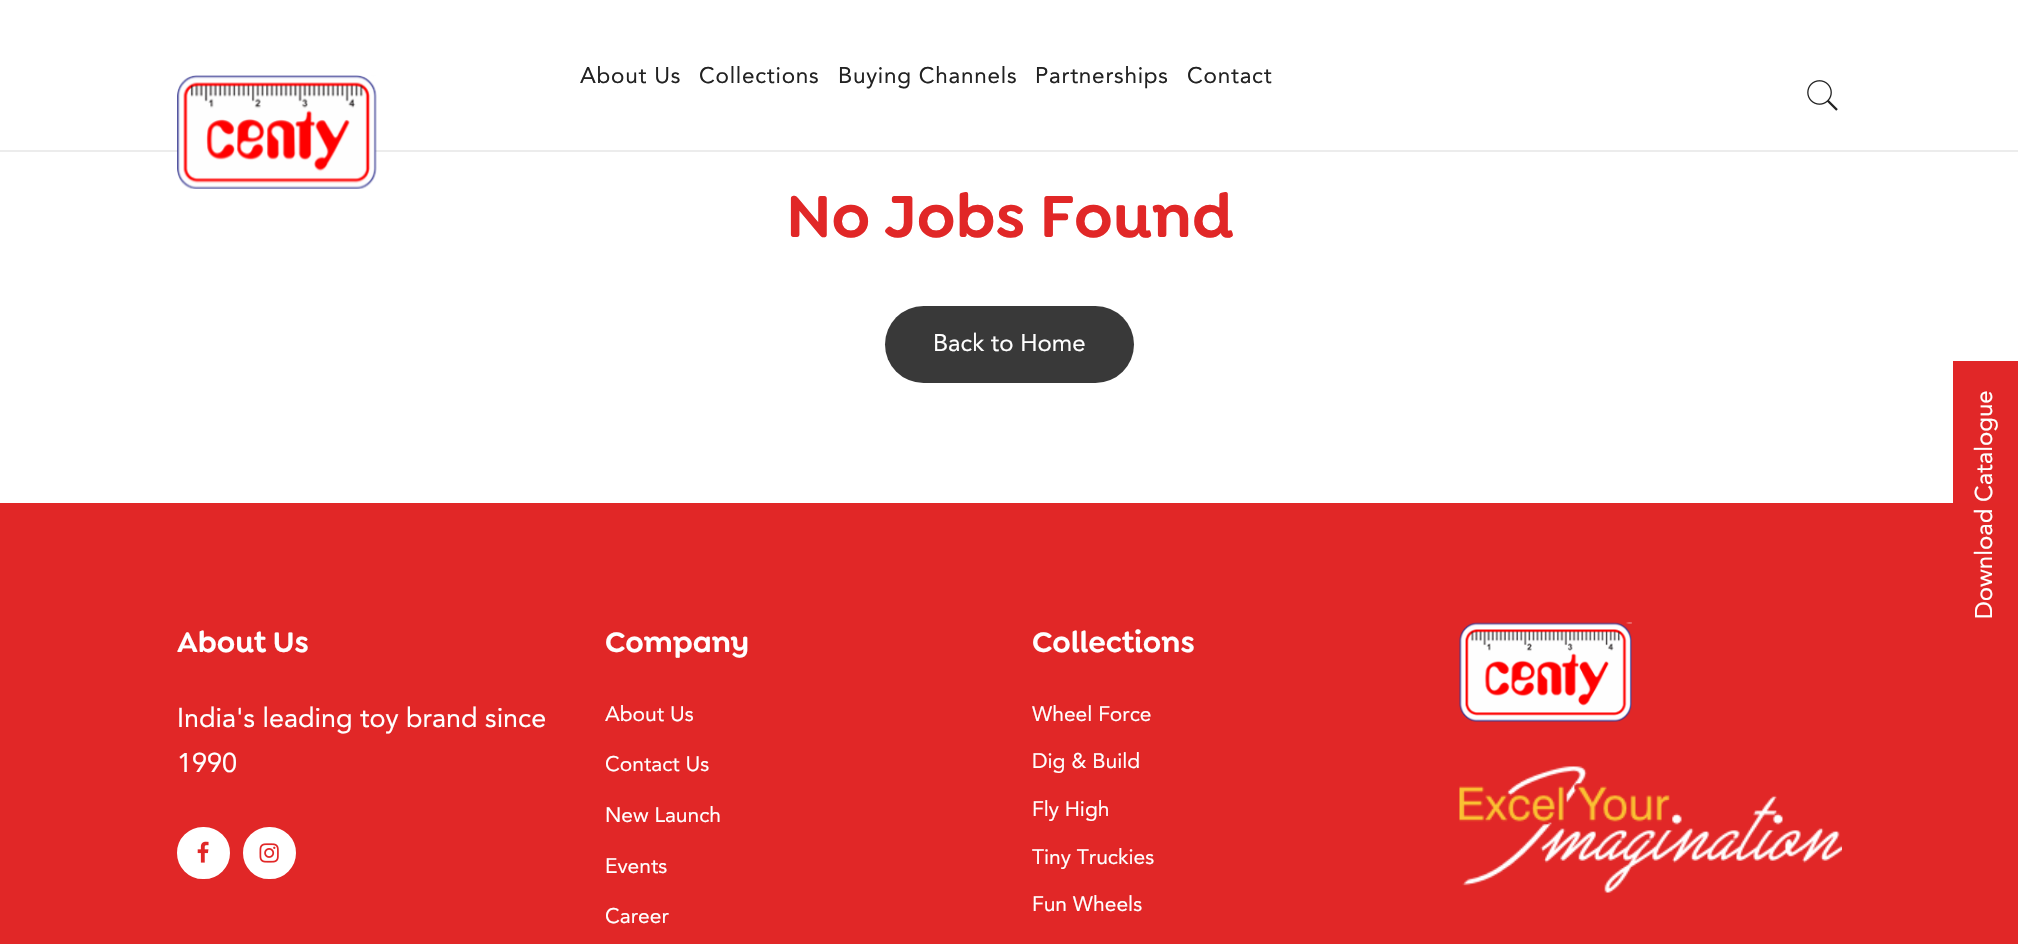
#include "include/core/SkBlurTypes.h"
#include "include/core/SkCanvas.h"
#include "include/core/SkData.h"
#include "include/core/SkFont.h"
#include "include/core/SkFontMgr.h"
#include "include/core/SkImage.h"
#include "include/core/SkMaskFilter.h"
#include "include/core/SkPaint.h"
#include "include/core/SkPathBuilder.h"
#include "include/core/SkTextBlob.h"
#include "include/effects/SkDashPathEffect.h"
#include "include/effects/SkGradientShader.h"
#include "include/utils/SkParsePath.h"

extern sk_sp<SkFontMgr> fontMgr;

void draw(SkCanvas* canvas) {
  SkPaint p;
  p.setAntiAlias(true);
  auto spacedText = [&](const char* s, float x, float y, const SkFont& font, const SkPaint& ink, float letter, float word) {
    std::vector<SkGlyphID> glyphs(font.countText(s, strlen(s), SkTextEncoding::kUTF8));
    std::vector<float> xs(glyphs.size());
    font.textToGlyphs(s, strlen(s), SkTextEncoding::kUTF8, glyphs);
    font.getXPos(glyphs, xs, x);
    float extra = 0;
    for (size_t i = 0; i < glyphs.size(); i++) {
      xs[i] += extra;
      extra += letter + word * (glyphs[i] == font.unicharToGlyph(' '));
    }
    canvas->drawTextBlob(SkTextBlob::MakeFromPosHGlyphs(glyphs, xs, y, font), 0, 0, ink);
  };
  canvas->clear(SK_ColorWHITE);
  p.setColor(SkColorSetRGB(236, 236, 236));
  canvas->drawRect(SkRect::MakeLTRB(0, 150, 2018, 152), p);
  canvas->drawImageRect(SkImages::DeferredFromEncodedData(SkData::MakeFromFileName("images/1.png")), SkRect::MakeLTRB(177, 75, 377, 189), SkSamplingOptions());
  canvas->drawImageRect(SkImages::DeferredFromEncodedData(SkData::MakeFromFileName("images/2.png")), SkRect::MakeLTRB(1807, 80, 1838, 111), SkSamplingOptions());
  p.setColor(SkColorSetRGB(57, 57, 57));
  canvas->drawRoundRect(SkRect::MakeLTRB(885, 306, 1134, 383), 38.5f, 38.5f, p);
  p.setColor(SkColorSetRGB(225, 39, 40));
  canvas->drawRect(SkRect::MakeLTRB(1953, 361, 2018, 503), p);
  p.setColor(SkColorSetRGB(225, 39, 39));
  canvas->drawRect(SkRect::MakeLTRB(0, 503, 2018, 944), p);
  p.setColor(SK_ColorWHITE);
  canvas->drawRoundRect(SkRect::MakeLTRB(178, 828, 229, 878), 25, 25, p);
  p.setStyle(SkPaint::kStroke_Style);
  p.setStrokeWidth(2);
  canvas->drawRoundRect(SkRect::MakeLTRB(178, 828, 229, 878), 25, 25, p);
  canvas->drawImageRect(SkImages::DeferredFromEncodedData(SkData::MakeFromFileName("images/3.png")), SkRect::MakeLTRB(197, 841, 209, 863), SkSamplingOptions());
  p.setStyle(SkPaint::kFill_Style);
  canvas->drawRoundRect(SkRect::MakeLTRB(244, 828, 295, 878), 25, 25, p);
  p.setStyle(SkPaint::kStroke_Style);
  canvas->drawRoundRect(SkRect::MakeLTRB(244, 828, 295, 878), 25, 25, p);
  canvas->drawImageRect(SkImages::DeferredFromEncodedData(SkData::MakeFromFileName("images/4.png")), SkRect::MakeLTRB(259, 843, 279, 863), SkSamplingOptions());
  canvas->drawImageRect(SkImages::DeferredFromEncodedData(SkData::MakeFromFileName("images/5.png")), SkRect::MakeLTRB(1459, 622, 1632, 722), SkSamplingOptions());
  canvas->drawImageRect(SkImages::DeferredFromEncodedData(SkData::MakeFromFileName("images/6.png")), SkRect::MakeLTRB(1459, 766, 1842, 893), SkSamplingOptions());
  SkFont font1(fontMgr->matchFamilyStyle("Avenir", SkFontStyle::Normal()), 22.5f);
  font1.setSubpixel(true);
  p.setStyle(SkPaint::kFill_Style);
  p.setColor(SkColorSetRGB(34, 34, 34));
  spacedText("About Us", 580, 83, font1, p, 0.75f, 0);
  spacedText("Collections", 699, 83, font1, p, 0.75f, 0);
  spacedText("Buying Channels", 838, 83, font1, p, 0.75f, 0);
  spacedText("Partnerships", 1035, 83, font1, p, 0.75f, 0);
  spacedText("Contact", 1187, 83, font1, p, 0.75f, 0);
  SkFont font2(fontMgr->matchFamilyStyle("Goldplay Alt", SkFontStyle(600, SkFontStyle::kNormal_Width, SkFontStyle::kUpright_Slant)), 63);
  font2.setSubpixel(true);
  p.setColor(SkColorSetRGB(225, 39, 39));
  canvas->drawString("No Jobs Found", 786, 237, font2, p);
  SkFont font3(fontMgr->matchFamilyStyle("Avenir", SkFontStyle::Normal()), 24);
  font3.setSubpixel(true);
  p.setColor(SK_ColorWHITE);
  canvas->drawString("Back to Home", 933, 351, font3, p);
  canvas->save();
  canvas->rotate(-90, 1992, 619);
  canvas->drawString("Download Catalogue", 1992, 619, font3, p);
  canvas->restore();
  SkFont font4(fontMgr->matchFamilyStyle("Goldplay Alt", SkFontStyle(600, SkFontStyle::kNormal_Width, SkFontStyle::kUpright_Slant)), 30);
  font4.setSubpixel(true);
  canvas->drawString("About Us", 177, 652, font4, p);
  SkFont font5(fontMgr->matchFamilyStyle("Avenir", SkFontStyle::Normal()), 27);
  font5.setSubpixel(true);
  canvas->drawString("India's leading toy brand since", 177, 727, font5, p);
  canvas->drawString("1990", 177, 772, font5, p);
  canvas->drawString("Company", 605, 652, font4, p);
  SkFont font6(fontMgr->matchFamilyStyle("Avenir", SkFontStyle::Normal()), 21);
  font6.setSubpixel(true);
  canvas->drawString("About Us", 605, 721, font6, p);
  canvas->drawString("Contact Us", 605, 771, font6, p);
  canvas->drawString("New Launch", 605, 822, font6, p);
  canvas->drawString("Events", 605, 873, font6, p);
  canvas->drawString("Career", 605, 923, font6, p);
  canvas->drawString("Collections", 1032, 652, font4, p);
  canvas->drawString("Wheel Force", 1032, 721, font6, p);
  canvas->drawString("Dig & Build", 1032, 768, font6, p);
  canvas->drawString("Fly High", 1032, 816, font6, p);
  canvas->drawString("Tiny Truckies", 1032, 864, font6, p);
  canvas->drawString("Fun Wheels", 1032, 911, font6, p);
}
